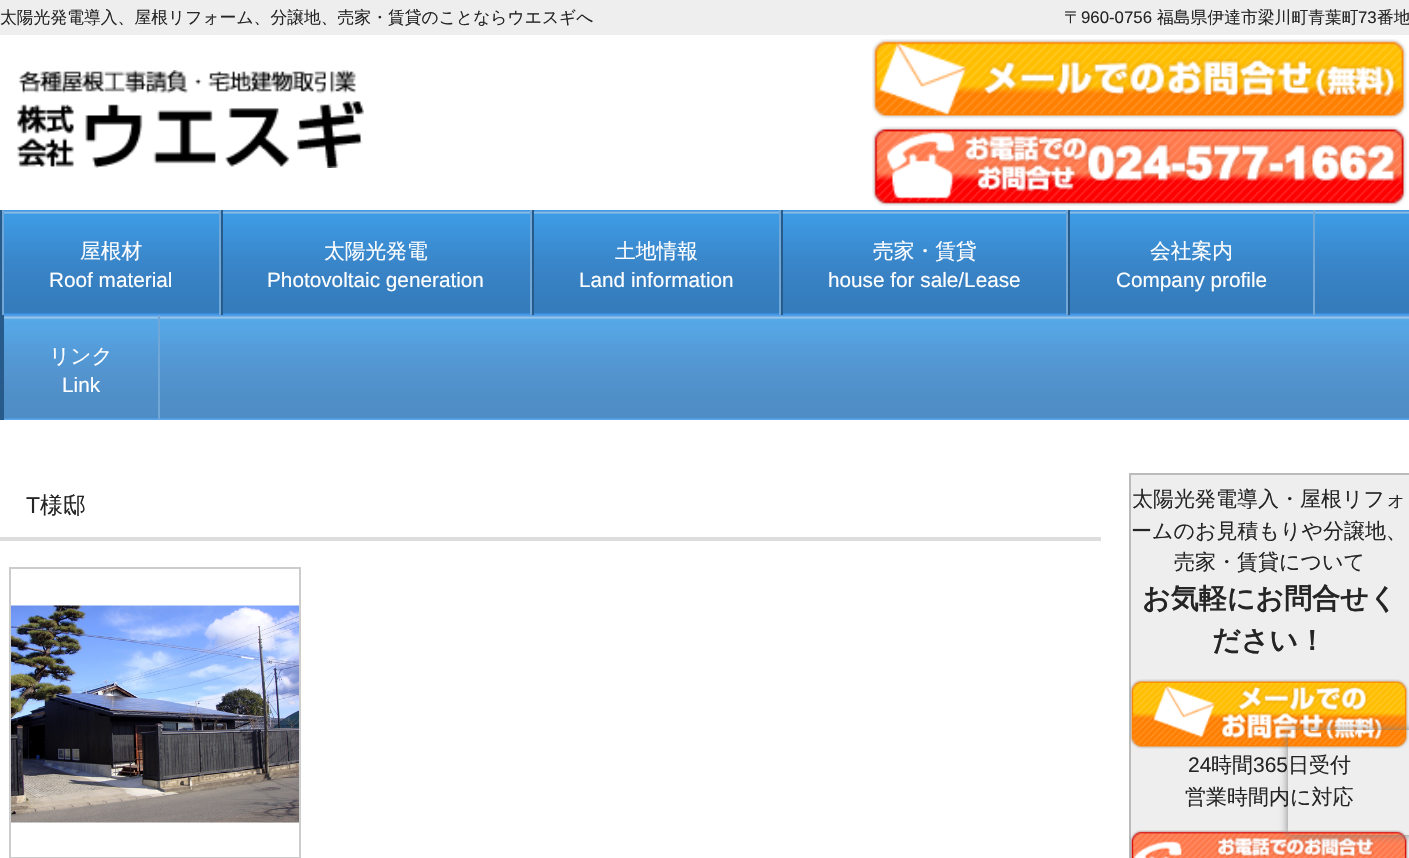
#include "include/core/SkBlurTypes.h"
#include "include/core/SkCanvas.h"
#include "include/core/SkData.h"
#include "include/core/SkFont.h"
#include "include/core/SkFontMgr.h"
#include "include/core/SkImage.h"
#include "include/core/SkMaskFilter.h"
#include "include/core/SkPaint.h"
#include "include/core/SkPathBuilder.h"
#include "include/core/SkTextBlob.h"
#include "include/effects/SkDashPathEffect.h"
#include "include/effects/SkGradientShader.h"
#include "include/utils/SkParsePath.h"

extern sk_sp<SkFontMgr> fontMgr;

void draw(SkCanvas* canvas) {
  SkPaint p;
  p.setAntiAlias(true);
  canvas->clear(SK_ColorWHITE);
  p.setColor(SkColorSetRGB(238, 238, 238));
  canvas->drawRect(SkRect::MakeLTRB(0, 0, 1409, 35), p);
  canvas->drawImageRect(SkImages::DeferredFromEncodedData(SkData::MakeFromFileName("images/1.png")), SkRect::MakeLTRB(17, 70, 364, 168), SkSamplingOptions());
  canvas->drawImageRect(SkImages::DeferredFromEncodedData(SkData::MakeFromFileName("images/2.png")), SkRect::MakeLTRB(872, 39, 1407, 119), SkSamplingOptions());
  canvas->drawImageRect(SkImages::DeferredFromEncodedData(SkData::MakeFromFileName("images/3.png")), SkRect::MakeLTRB(872, 126, 1407, 206), SkSamplingOptions());
  canvas->drawImageRect(SkImages::DeferredFromEncodedData(SkData::MakeFromFileName("images/4.png")), SkRect::MakeLTRB(4, 210, 1409, 420), SkSamplingOptions());
  p.setColor(SkColorSetRGB(38, 91, 139));
  canvas->drawRect(SkRect::MakeLTRB(0, 210, 2, 420), p);
  p.setColor(SkColorSetRGB(112, 167, 215));
  canvas->drawRect(SkRect::MakeLTRB(219, 210, 221, 315), p);
  canvas->drawRect(SkRect::MakeLTRB(2, 210, 4, 315), p);
  canvas->drawRect(SkRect::MakeLTRB(530, 210, 532, 315), p);
  p.setColor(SkColorSetRGB(38, 91, 139));
  canvas->drawRect(SkRect::MakeLTRB(221, 210, 223, 315), p);
  p.setColor(SkColorSetRGB(112, 167, 215));
  canvas->drawRect(SkRect::MakeLTRB(779, 210, 781, 315), p);
  p.setColor(SkColorSetRGB(38, 91, 139));
  canvas->drawRect(SkRect::MakeLTRB(532, 210, 534, 315), p);
  p.setColor(SkColorSetRGB(112, 167, 215));
  canvas->drawRect(SkRect::MakeLTRB(1066, 210, 1068, 315), p);
  p.setColor(SkColorSetRGB(38, 91, 139));
  canvas->drawRect(SkRect::MakeLTRB(781, 210, 783, 315), p);
  p.setColor(SkColorSetRGB(112, 167, 215));
  canvas->drawRect(SkRect::MakeLTRB(1313, 210, 1315, 315), p);
  p.setColor(SkColorSetRGB(38, 91, 139));
  canvas->drawRect(SkRect::MakeLTRB(1068, 210, 1070, 315), p);
  p.setColor(SkColorSetRGB(112, 167, 215));
  canvas->drawRect(SkRect::MakeLTRB(158, 315, 160, 420), p);
  p.setColor(SkColorSetRGB(38, 91, 139));
  canvas->drawRect(SkRect::MakeLTRB(2, 315, 4, 420), p);
  p.setColor(SkColorSetRGB(221, 221, 221));
  canvas->drawRect(SkRect::MakeLTRB(0, 537, 1101, 541), p);
  canvas->drawImageRect(SkImages::DeferredFromEncodedData(SkData::MakeFromFileName("images/5.png")), SkRect::MakeLTRB(11, 605, 299, 823), SkSamplingOptions());
  p.setStyle(SkPaint::kStroke_Style);
  p.setStrokeWidth(2);
  p.setColor(SkColorSetRGB(204, 204, 204));
  canvas->drawRect(SkRect::MakeLTRB(10, 568, 300, 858), p);
  p.setStyle(SkPaint::kFill_Style);
  p.setColor(SkColorSetRGB(238, 238, 238));
  canvas->drawRect(SkRect::MakeLTRB(1130, 474, 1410, 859), p);
  p.setStyle(SkPaint::kStroke_Style);
  p.setColor(SkColorSetRGB(187, 187, 187));
  canvas->drawRect(SkRect::MakeLTRB(1130, 474, 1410, 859), p);
  canvas->drawImageRect(SkImages::DeferredFromEncodedData(SkData::MakeFromFileName("images/6.png")), SkRect::MakeLTRB(1130, 679, 1409, 749), SkSamplingOptions());
  canvas->drawImageRect(SkImages::DeferredFromEncodedData(SkData::MakeFromFileName("images/7.png")), SkRect::MakeLTRB(1130, 830, 1409, 858), SkSamplingOptions());
  canvas->save();
  canvas->clipPath(SkPathBuilder(SkPathFillType::kEvenOdd).moveTo(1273, 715).lineTo(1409, 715).lineTo(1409, 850).lineTo(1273, 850).close().moveTo(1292, 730).lineTo(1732, 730).cubicTo(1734, 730, 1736, 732, 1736, 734).lineTo(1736, 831).cubicTo(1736, 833, 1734, 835, 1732, 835).lineTo(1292, 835).cubicTo(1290, 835, 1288, 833, 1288, 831).lineTo(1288, 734).cubicTo(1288, 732, 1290, 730, 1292, 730).close().detach(), true);
  p.setStyle(SkPaint::kFill_Style);
  p.setColor(SkColorSetRGB(128, 128, 128));
  p.setMaskFilter(SkMaskFilter::MakeBlur(kNormal_SkBlurStyle, 4.5f));
  canvas->drawRoundRect(SkRect::MakeLTRB(1288, 730, 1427, 835), 4, 4, p);
  p.setMaskFilter(nullptr);
  canvas->restore();
  SkFont font1(fontMgr->matchFamilyStyle("WenQuanYi Zen Hei", SkFontStyle(500, SkFontStyle::kNormal_Width, SkFontStyle::kUpright_Slant)), 16.8f);
  font1.setSubpixel(true);
  p.setColor(SkColorSetRGB(37, 37, 37));
  canvas->drawString("太陽光発電導入、屋根リフォーム、分譲地、売家・賃貸のことならウエスギへ", 0, 23, font1, p);
  canvas->drawString("〒", 1064, 23, font1, p);
  SkFont font2(fontMgr->matchFamilyStyle("Liberation Sans", SkFontStyle::Normal()), 16.8f);
  font2.setSubpixel(true);
  canvas->drawString("960-0756", 1081, 23, font2, p);
  canvas->drawString("福島県伊達市梁川町青葉町", 1157, 23, font1, p);
  canvas->drawString("73", 1358, 23, font2, p);
  canvas->drawString("番地", 1377, 23, font1, p);
  SkFont font3(fontMgr->matchFamilyStyle("WenQuanYi Zen Hei", SkFontStyle(500, SkFontStyle::kNormal_Width, SkFontStyle::kUpright_Slant)), 20.75f);
  font3.setSubpixel(true);
  p.setColor(SK_ColorWHITE);
  canvas->drawString("屋根材", 80, 258, font3, p);
  SkFont font4(fontMgr->matchFamilyStyle("Liberation Sans", SkFontStyle::Normal()), 20.75f);
  font4.setSubpixel(true);
  canvas->drawString("Roof material", 49, 287, font4, p);
  canvas->drawString("太陽光発電", 324, 258, font3, p);
  canvas->drawString("Photovoltaic generation", 267, 287, font4, p);
  canvas->drawString("土地情報", 615, 258, font3, p);
  canvas->drawString("Land information", 579, 287, font4, p);
  canvas->drawString("売家・賃貸", 873, 258, font3, p);
  canvas->drawString("house for sale/Lease", 828, 287, font4, p);
  canvas->drawString("会社案内", 1150, 258, font3, p);
  canvas->drawString("Company profile", 1116, 287, font4, p);
  canvas->drawString("リンク", 49, 363, font3, p);
  canvas->drawString("Link", 62, 392, font4, p);
  SkFont font5(fontMgr->matchFamilyStyle("Liberation Sans", SkFontStyle::Normal()), 23);
  font5.setSubpixel(true);
  p.setColor(SkColorSetRGB(37, 37, 37));
  canvas->drawString("T", 26, 513, font5, p);
  SkFont font6(fontMgr->matchFamilyStyle("WenQuanYi Zen Hei", SkFontStyle(500, SkFontStyle::kNormal_Width, SkFontStyle::kUpright_Slant)), 23);
  font6.setSubpixel(true);
  canvas->drawString("様邸", 40, 513, font6, p);
  SkFont font7(fontMgr->matchFamilyStyle("WenQuanYi Zen Hei", SkFontStyle(500, SkFontStyle::kNormal_Width, SkFontStyle::kUpright_Slant)), 21);
  font7.setSubpixel(true);
  canvas->drawString("太陽光発電導入・屋根リフォ", 1132, 506, font7, p);
  canvas->drawString("ームのお見積もりや分譲地、", 1131, 538, font7, p);
  canvas->drawString("売家・賃貸について", 1174, 569, font7, p);
  SkFont font8(fontMgr->matchFamilyStyle("WenQuanYi Zen Hei", SkFontStyle::Bold()), 28);
  font8.setSubpixel(true);
  canvas->drawString("お気軽にお問合せく", 1142, 608, font8, p);
  canvas->drawString("ださい！", 1212, 650, font8, p);
  SkFont font9(fontMgr->matchFamilyStyle("Liberation Sans", SkFontStyle::Normal()), 21);
  font9.setSubpixel(true);
  canvas->drawString("24", 1188, 772, font9, p);
  canvas->drawString("時間", 1211, 772, font7, p);
  canvas->drawString("365", 1253, 772, font9, p);
  canvas->drawString("日受付", 1288, 772, font7, p);
  canvas->drawString("営業時間内に対応", 1185, 804, font7, p);
}
